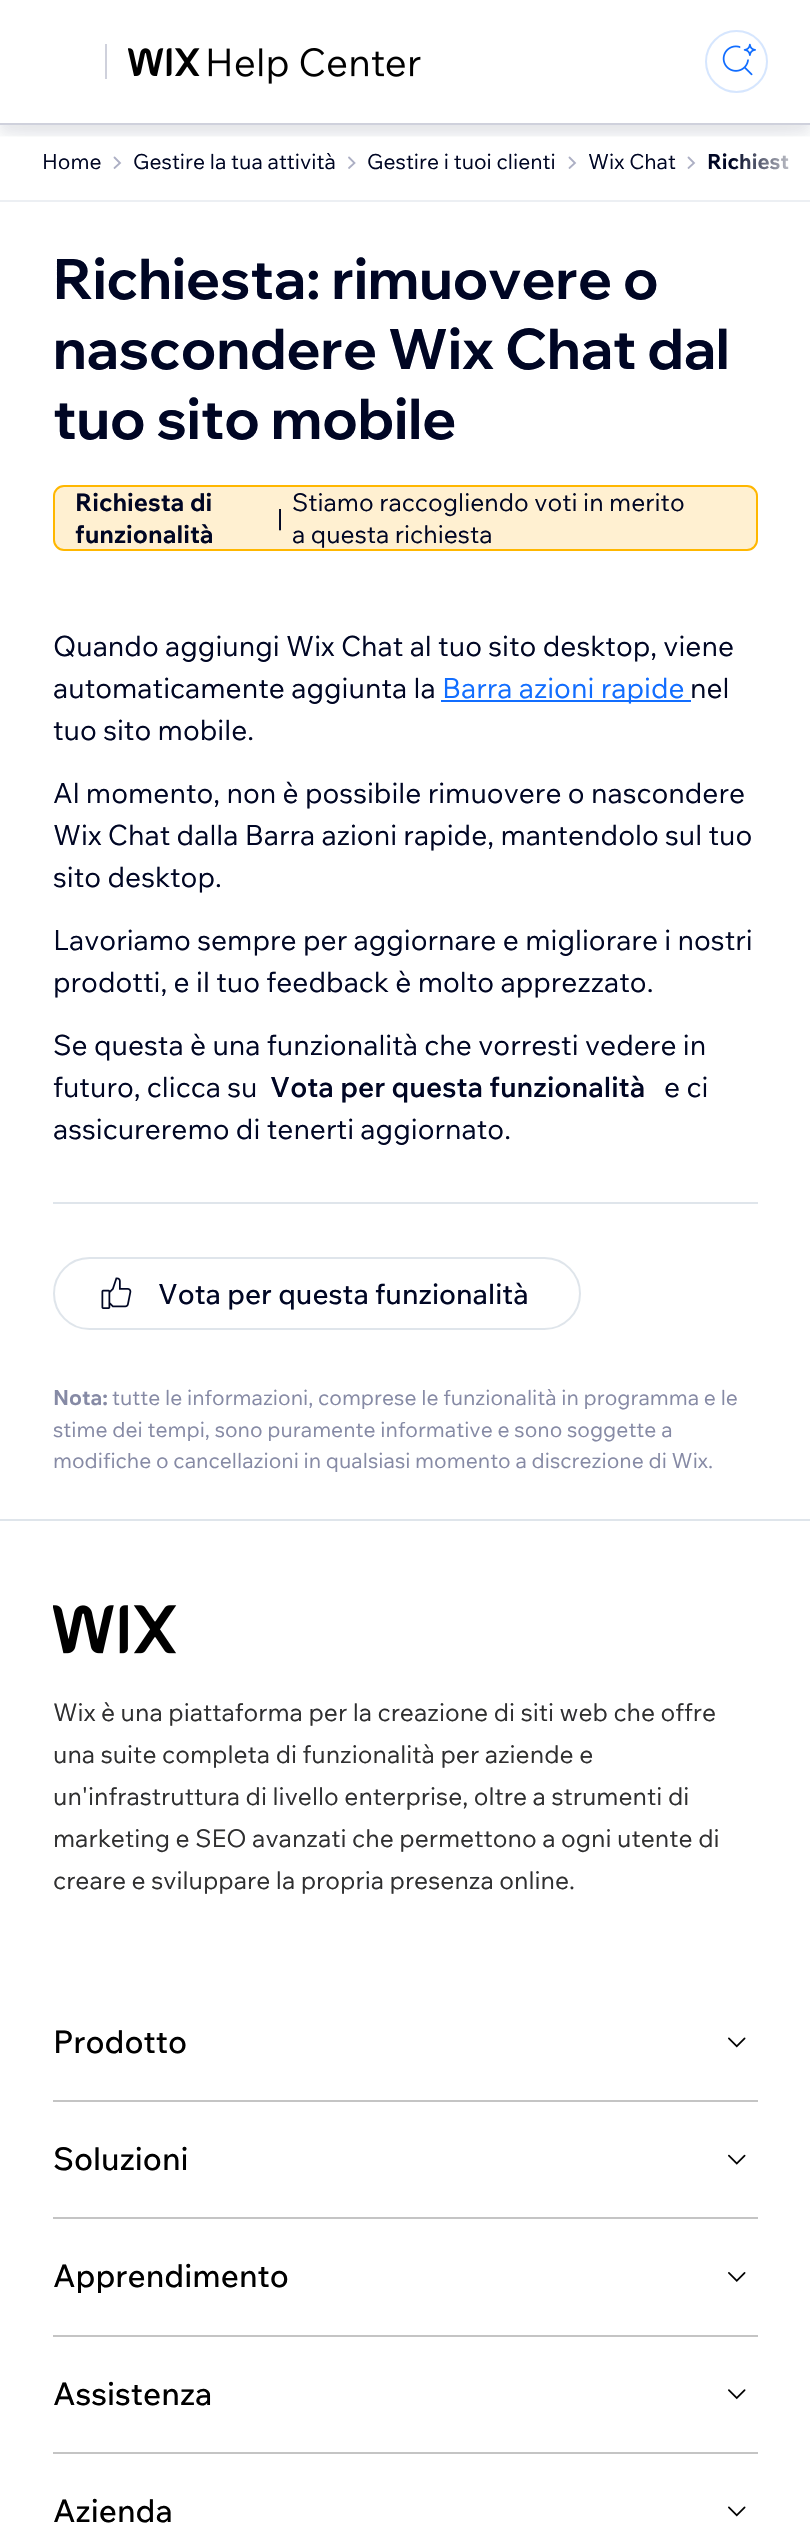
#include "include/core/SkBlurTypes.h"
#include "include/core/SkCanvas.h"
#include "include/core/SkData.h"
#include "include/core/SkFont.h"
#include "include/core/SkFontMgr.h"
#include "include/core/SkImage.h"
#include "include/core/SkMaskFilter.h"
#include "include/core/SkPaint.h"
#include "include/core/SkPathBuilder.h"
#include "include/core/SkTextBlob.h"
#include "include/effects/SkDashPathEffect.h"
#include "include/effects/SkGradientShader.h"
#include "include/utils/SkParsePath.h"

extern sk_sp<SkFontMgr> fontMgr;

void draw(SkCanvas* canvas) {
  SkPaint p;
  p.setAntiAlias(true);
  canvas->clear(SK_ColorWHITE);
  canvas->save();
  canvas->clipRect(SkRect::MakeLTRB(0, 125, 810, 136));
  p.setColor(SkColorSetARGB(13, 0, 6, 36));
  p.setMaskFilter(SkMaskFilter::MakeBlur(kNormal_SkBlurStyle, 5));
  canvas->drawRect(SkRect::MakeLTRB(0, 11, 810, 135), p);
  p.setMaskFilter(nullptr);
  canvas->restore();
  p.setColor(SkColorSetRGB(236, 239, 243));
  canvas->drawRect(SkRect::MakeLTRB(0, 200, 810, 202), p);
  p.setStyle(SkPaint::kStroke_Style);
  p.setStrokeWidth(1.8f);
  p.setStrokeCap(SkPaint::kRound_Cap);
  p.setColor(SkColorSetRGB(172, 175, 196));
  canvas->drawPath(SkPathBuilder().moveTo(114.5f, 168).lineTo(120, 163).lineTo(114.5f, 157.5f).detach(), p);
  canvas->drawPath(SkPathBuilder().moveTo(349, 168).lineTo(354.5f, 163).lineTo(349, 157.5f).detach(), p);
  canvas->drawPath(SkPathBuilder().moveTo(569.5f, 168).lineTo(575, 163).lineTo(569.5f, 157.5f).detach(), p);
  canvas->drawPath(SkPathBuilder().moveTo(688.5f, 168).lineTo(694, 163).lineTo(688.5f, 157.5f).detach(), p);
  p.setStyle(SkPaint::kFill_Style);
  p.setColor(SkColorSetRGB(255, 240, 209));
  canvas->drawRoundRect(SkRect::MakeLTRB(54, 486, 757, 550), 10, 10, p);
  p.setStyle(SkPaint::kStroke_Style);
  p.setStrokeWidth(2);
  p.setStrokeCap(SkPaint::kButt_Cap);
  p.setColor(SkColorSetRGB(255, 183, 0));
  canvas->drawRoundRect(SkRect::MakeLTRB(54, 486, 757, 550), 10, 10, p);
  p.setStyle(SkPaint::kFill_Style);
  p.setColor(SkColorSetRGB(17, 109, 255));
  canvas->drawRect(SkRect::MakeLTRB(441, 700, 691, 702), p);
  p.setColor(SkColorSetRGB(223, 229, 235));
  canvas->drawRect(SkRect::MakeLTRB(53, 1202, 758, 1204), p);
  p.setStyle(SkPaint::kStroke_Style);
  canvas->drawRoundRect(SkRect::MakeLTRB(54, 1258, 580, 1329), 35.5f, 35.5f, p);
  canvas->drawImageRect(SkImages::DeferredFromEncodedData(SkData::MakeFromFileName("images/3.png")), SkRect::MakeLTRB(101, 1277, 132, 1309), SkSamplingOptions());
  p.setStyle(SkPaint::kFill_Style);
  canvas->drawRect(SkRect::MakeLTRB(0, 1519, 810, 1521), p);
  canvas->drawImageRect(SkImages::DeferredFromEncodedData(SkData::MakeFromFileName("images/4.png")), SkRect::MakeLTRB(53, 1605, 177, 1654), SkSamplingOptions());
  p.setColor(SkColorSetRGB(196, 196, 196));
  canvas->drawRect(SkRect::MakeLTRB(53, 2100, 758, 2102), p);
  canvas->drawImageRect(SkImages::DeferredFromEncodedData(SkData::MakeFromFileName("images/5.png")), SkRect::MakeLTRB(728, 2037, 746, 2048), SkSamplingOptions());
  canvas->drawRect(SkRect::MakeLTRB(53, 2217, 758, 2219), p);
  canvas->drawImageRect(SkImages::DeferredFromEncodedData(SkData::MakeFromFileName("images/6.png")), SkRect::MakeLTRB(728, 2154, 746, 2165), SkSamplingOptions());
  canvas->drawRect(SkRect::MakeLTRB(53, 2335, 758, 2337), p);
  canvas->drawImageRect(SkImages::DeferredFromEncodedData(SkData::MakeFromFileName("images/7.png")), SkRect::MakeLTRB(728, 2272, 746, 2282), SkSamplingOptions());
  canvas->drawRect(SkRect::MakeLTRB(53, 2452, 758, 2454), p);
  canvas->drawImageRect(SkImages::DeferredFromEncodedData(SkData::MakeFromFileName("images/8.png")), SkRect::MakeLTRB(728, 2389, 746, 2400), SkSamplingOptions());
  canvas->drawImageRect(SkImages::DeferredFromEncodedData(SkData::MakeFromFileName("images/5.png")), SkRect::MakeLTRB(728, 2506, 746, 2517), SkSamplingOptions());
  SkFont font1(fontMgr->matchFamilyStyle("Wix Madefor Text", SkFontStyle::Normal()), 21);
  font1.setSubpixel(true);
  p.setColor(SkColorSetRGB(0, 6, 36));
  canvas->drawString("Home", 42, 169, font1, p);
  canvas->drawString("Gestire la tua attività", 133, 169, font1, p);
  canvas->drawString("Gestire i tuoi clienti", 367, 169, font1, p);
  canvas->drawString("Wix Chat", 588, 169, font1, p);
  SkFont font2(fontMgr->matchFamilyStyle("Wix Madefor Text", SkFontStyle::Bold()), 21);
  font2.setSubpixel(true);
  canvas->drawString("Richiest", 707, 169, font2, p);
  {
    const SkColor colors[] = {SK_ColorWHITE, SkColorSetARGB(0, 255, 255, 255)};
    const float stops[] = {0, 1};
    const SkPoint ends[] = {{810, 162}, {732, 162}};
    p.setShader(SkGradientShader::MakeLinear(ends, colors, stops, 2, SkTileMode::kClamp));
    p.setAlpha(255);
  }
  canvas->drawRect(SkRect::MakeLTRB(734, 153, 789, 170), p);
  canvas->save();
  canvas->clipRect(SkRect::MakeLTRB(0, 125, 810, 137));
  p.setShader(nullptr);
  p.setColor(SkColorSetARGB(26, 0, 6, 36));
  p.setMaskFilter(SkMaskFilter::MakeBlur(kNormal_SkBlurStyle, 16));
  canvas->drawRect(SkRect::MakeLTRB(0, 0, 810, 124), p);
  p.setMaskFilter(nullptr);
  canvas->restore();
  p.setStyle(SkPaint::kStroke_Style);
  p.setColor(SkColorSetRGB(214, 230, 254));
  canvas->drawCircle(736.5f, 61.5f, 30.5f, p);
  canvas->drawImageRect(SkImages::DeferredFromEncodedData(SkData::MakeFromFileName("images/2.png")), SkRect::MakeLTRB(722, 43, 756, 76), SkSamplingOptions());
  canvas->drawImageRect(SkImages::DeferredFromEncodedData(SkData::MakeFromFileName("images/1.png")), SkRect::MakeLTRB(128, 48, 421, 84), SkSamplingOptions());
  p.setStyle(SkPaint::kFill_Style);
  p.setColor(SkColorSetRGB(207, 209, 220));
  canvas->drawRect(SkRect::MakeLTRB(105, 44, 107, 79), p);
  canvas->drawRect(SkRect::MakeLTRB(0, 123, 810, 125), p);
  SkFont font3(fontMgr->matchFamilyStyle("Wix Madefor Display", SkFontStyle::Bold()), 56);
  font3.setSubpixel(true);
  p.setColor(SkColorSetRGB(0, 6, 36));
  canvas->drawString("Richiesta: rimuovere o", 53, 299, font3, p);
  canvas->drawString("nascondere Wix Chat dal", 53, 369, font3, p);
  canvas->drawString("tuo sito mobile", 53, 439, font3, p);
  SkFont font4(fontMgr->matchFamilyStyle("Wix Madefor Text", SkFontStyle::Bold()), 24.5f);
  font4.setSubpixel(true);
  canvas->drawString("Richiesta di", 75, 511, font4, p);
  canvas->drawString("funzionalità", 75, 543, font4, p);
  SkFont font5(fontMgr->matchFamilyStyle("Wix Madefor Text", SkFontStyle::Normal()), 24.5f);
  font5.setSubpixel(true);
  canvas->drawString("|", 277, 527, font5, p);
  canvas->drawString("Stiamo raccogliendo voti in merito", 292, 511, font5, p);
  canvas->drawString("a questa richiesta", 292, 543, font5, p);
  SkFont font6(fontMgr->matchFamilyStyle("Wix Madefor Text", SkFontStyle::Normal()), 28);
  font6.setSubpixel(true);
  canvas->drawString("Quando aggiungi Wix Chat al tuo sito desktop, viene", 53, 656, font6, p);
  canvas->drawString("automaticamente aggiunta la", 53, 698, font6, p);
  p.setColor(SkColorSetRGB(17, 109, 255));
  canvas->drawString("Barra azioni rapide", 442, 698, font6, p);
  p.setColor(SkColorSetRGB(0, 6, 36));
  canvas->drawString("nel", 690, 698, font6, p);
  canvas->drawString("tuo sito mobile.", 53, 740, font6, p);
  canvas->drawString("Al momento, non è possibile rimuovere o nascondere", 53, 803, font6, p);
  canvas->drawString("Wix Chat dalla Barra azioni rapide, mantendolo sul tuo", 53, 845, font6, p);
  canvas->drawString("sito desktop.", 53, 887, font6, p);
  canvas->drawString("Lavoriamo sempre per aggiornare e migliorare i nostri", 53, 950, font6, p);
  canvas->drawString("prodotti, e il tuo feedback è molto apprezzato.", 53, 992, font6, p);
  canvas->drawString("Se questa è una funzionalità che vorresti vedere in", 53, 1055, font6, p);
  canvas->drawString("futuro, clicca su", 53, 1097, font6, p);
  SkFont font7(fontMgr->matchFamilyStyle("Wix Madefor Text", SkFontStyle(600, SkFontStyle::kNormal_Width, SkFontStyle::kUpright_Slant)), 28);
  font7.setSubpixel(true);
  canvas->drawString("Vota per questa funzionalità", 270, 1097, font7, p);
  canvas->drawString("e ci", 664, 1097, font6, p);
  canvas->drawString("assicureremo di tenerti aggiornato.", 53, 1139, font6, p);
  SkFont font8(fontMgr->matchFamilyStyle("Wix Madefor Text", SkFontStyle(500, SkFontStyle::kNormal_Width, SkFontStyle::kUpright_Slant)), 28);
  font8.setSubpixel(true);
  canvas->drawString("Vota per questa funzionalità", 158, 1304, font8, p);
  p.setColor(SkColorSetRGB(134, 138, 165));
  canvas->drawString("Nota:", 53, 1405, font2, p);
  canvas->drawString("tutte le informazioni, comprese le funzionalità in programma e le", 112, 1405, font1, p);
  canvas->drawString("stime dei tempi, sono puramente informative e sono soggette a", 53, 1437, font1, p);
  canvas->drawString("modifiche o cancellazioni in qualsiasi momento a discrezione di Wix.", 53, 1468, font1, p);
  p.setColor(SkColorSetRGB(47, 47, 48));
  canvas->drawString("Wix è una piattaforma per la creazione di siti web che offre", 53, 1721, font5, p);
  canvas->drawString("una suite completa di funzionalità per aziende e", 53, 1763, font5, p);
  canvas->drawString("un'infrastruttura di livello enterprise, oltre a strumenti di", 53, 1805, font5, p);
  canvas->drawString("marketing e SEO avanzati che permettono a ogni utente di", 53, 1847, font5, p);
  canvas->drawString("creare e sviluppare la propria presenza online.", 53, 1889, font5, p);
  SkFont font9(fontMgr->matchFamilyStyle("Wix Madefor Text", SkFontStyle(500, SkFontStyle::kNormal_Width, SkFontStyle::kUpright_Slant)), 31.5f);
  font9.setSubpixel(true);
  p.setColor(SK_ColorBLACK);
  canvas->drawString("Prodotto", 53, 2053, font9, p);
  canvas->drawString("Soluzioni", 53, 2170, font9, p);
  canvas->drawString("Apprendimento", 53, 2287, font9, p);
  canvas->drawString("Assistenza", 53, 2405, font9, p);
  canvas->drawString("Azienda", 53, 2522, font9, p);
}
